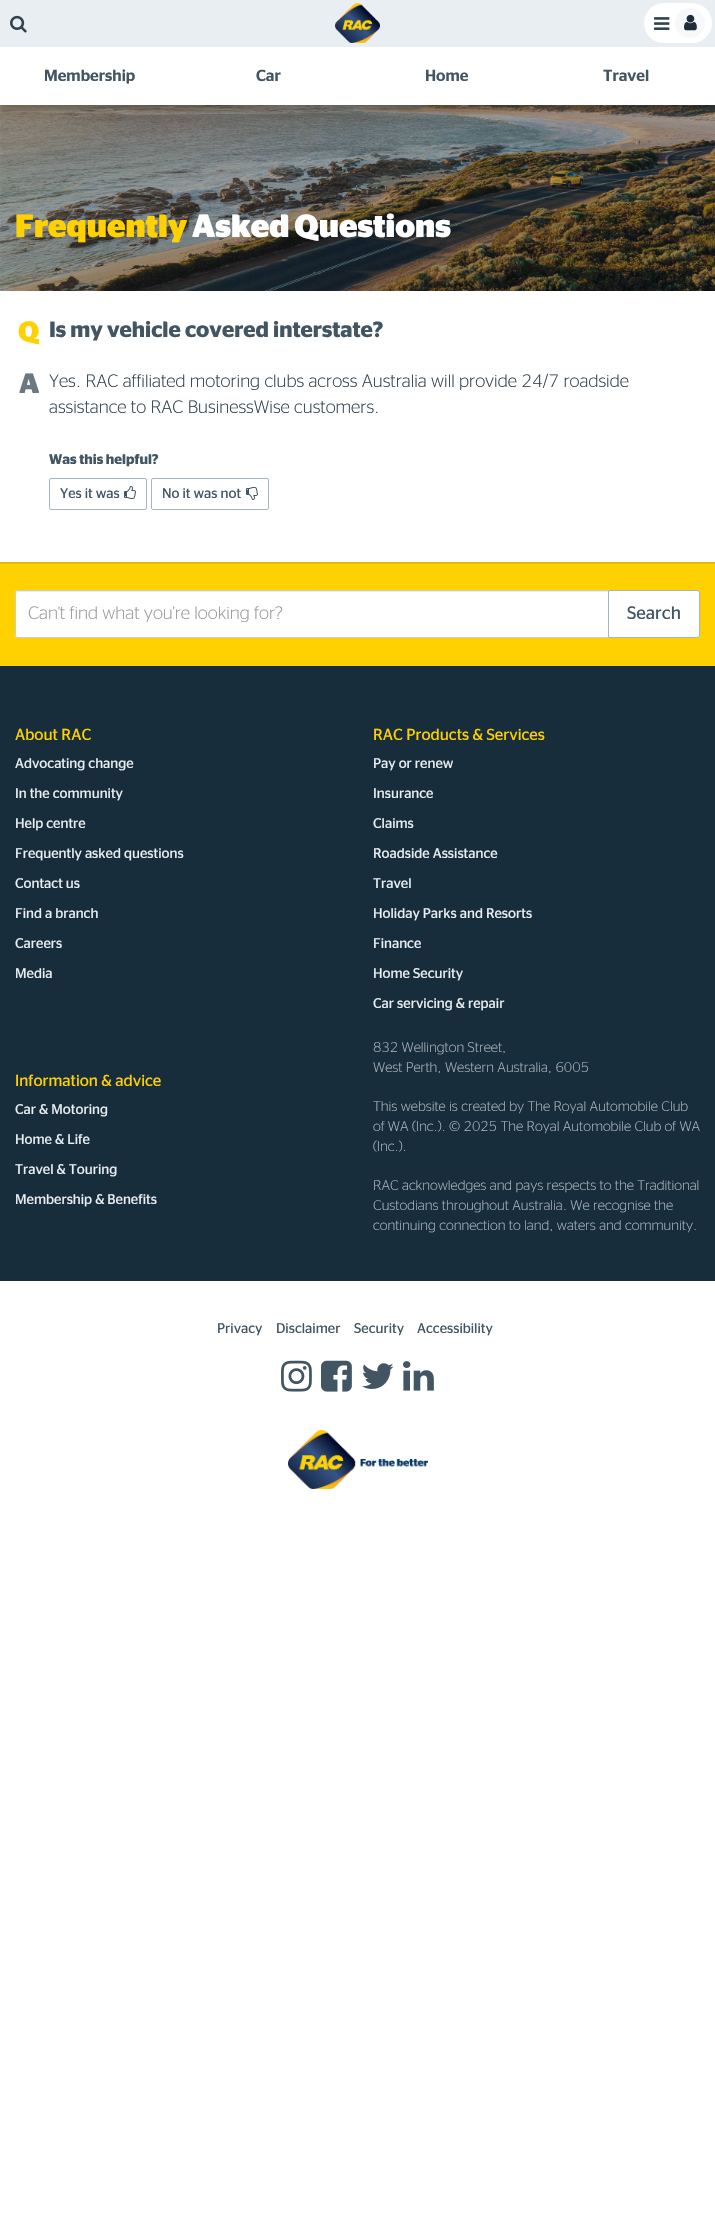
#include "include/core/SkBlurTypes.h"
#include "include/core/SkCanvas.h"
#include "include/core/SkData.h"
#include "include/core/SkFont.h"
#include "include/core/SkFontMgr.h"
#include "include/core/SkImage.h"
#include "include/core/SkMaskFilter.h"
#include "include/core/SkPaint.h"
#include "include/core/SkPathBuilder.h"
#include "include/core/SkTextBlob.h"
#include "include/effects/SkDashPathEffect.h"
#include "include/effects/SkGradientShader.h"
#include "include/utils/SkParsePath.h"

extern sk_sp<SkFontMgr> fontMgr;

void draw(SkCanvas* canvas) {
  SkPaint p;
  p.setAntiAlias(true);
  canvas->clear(SK_ColorWHITE);
  canvas->drawImageRect(SkImages::DeferredFromEncodedData(SkData::MakeFromFileName("images/5.png")), SkRect::MakeLTRB(0, 105, 715, 291), SkSamplingOptions());
  canvas->save();
  canvas->clipRect(SkRect::MakeLTRB(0, 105, 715, 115));
  p.setColor(SkColorSetARGB(64, 0, 0, 0));
  p.setMaskFilter(SkMaskFilter::MakeBlur(kNormal_SkBlurStyle, 4));
  canvas->drawRect(SkRect::MakeLTRB(0, 4, 715, 109), p);
  p.setMaskFilter(nullptr);
  canvas->restore();
  p.setColor(SkColorSetRGB(233, 238, 242));
  canvas->drawRect(SkRect::MakeLTRB(0, 0, 715, 47), p);
  canvas->drawImageRect(SkImages::DeferredFromEncodedData(SkData::MakeFromFileName("images/1.png")), SkRect::MakeLTRB(10, 15, 27, 33), SkSamplingOptions());
  canvas->drawImageRect(SkImages::DeferredFromEncodedData(SkData::MakeFromFileName("images/2.png")), SkRect::MakeLTRB(335, 3, 380, 43), SkSamplingOptions());
  p.setColor(SK_ColorWHITE);
  canvas->drawRoundRect(SkRect::MakeLTRB(644, 3, 712, 43), 20, 20, p);
  canvas->drawImageRect(SkImages::DeferredFromEncodedData(SkData::MakeFromFileName("images/3.png")), SkRect::MakeLTRB(654, 17, 670, 30), SkSamplingOptions());
  p.setColor(SkColorSetRGB(246, 248, 250));
  canvas->drawCircle(690, 23, 15, p);
  canvas->drawImageRect(SkImages::DeferredFromEncodedData(SkData::MakeFromFileName("images/4.png")), SkRect::MakeLTRB(684, 14, 697, 31), SkSamplingOptions());
  canvas->drawImageRect(SkImages::DeferredFromEncodedData(SkData::MakeFromFileName("images/6.png")), SkRect::MakeLTRB(18, 321, 40, 345), SkSamplingOptions());
  canvas->drawImageRect(SkImages::DeferredFromEncodedData(SkData::MakeFromFileName("images/7.png")), SkRect::MakeLTRB(19, 373, 39, 393), SkSamplingOptions());
  p.setStyle(SkPaint::kStroke_Style);
  p.setStrokeWidth(1);
  p.setColor(SkColorSetRGB(165, 182, 194));
  canvas->drawRoundRect(SkRect::MakeLTRB(49.5f, 478.5f, 146.5f, 509.5f), 1.5f, 1.5f, p);
  canvas->drawImageRect(SkImages::DeferredFromEncodedData(SkData::MakeFromFileName("images/8.png")), SkRect::MakeLTRB(124, 486, 136, 499), SkSamplingOptions());
  canvas->drawRoundRect(SkRect::MakeLTRB(151.5f, 478.5f, 268.5f, 509.5f), 1.5f, 1.5f, p);
  canvas->drawImageRect(SkImages::DeferredFromEncodedData(SkData::MakeFromFileName("images/9.png")), SkRect::MakeLTRB(246, 487, 258, 500), SkSamplingOptions());
  p.setStyle(SkPaint::kFill_Style);
  p.setColor(SkColorSetRGB(255, 209, 0));
  canvas->drawRect(SkRect::MakeLTRB(0, 564, 715, 666), p);
  p.setColor(SkColorSetRGB(230, 188, 0));
  canvas->drawRect(SkRect::MakeLTRB(0, 562, 715, 564), p);
  p.setColor(SK_ColorWHITE);
  canvas->drawPath(SkPathBuilder().moveTo(18, 590).lineTo(609, 590).lineTo(609, 638).lineTo(18, 638).cubicTo(16.5f, 638, 15, 636.5f, 15, 635).lineTo(15, 593).cubicTo(15, 591.5f, 16.5f, 590, 18, 590).close().detach(), p);
  p.setColor(SkColorSetRGB(236, 236, 236));
  canvas->drawPath(SkPathBuilder().moveTo(18, 592).lineTo(608, 592).lineTo(608, 591).lineTo(18, 591).lineTo(16, 592).lineTo(16, 594).cubicTo(16, 593, 17, 592, 18, 592).close().detach(), p);
  p.setStyle(SkPaint::kStroke_Style);
  p.setColor(SkColorSetRGB(204, 204, 204));
  canvas->drawPath(SkPathBuilder().moveTo(18, 590.5f).lineTo(608.5f, 590.5f).lineTo(608.5f, 637.5f).lineTo(18, 637.5f).cubicTo(16.5f, 637.5f, 15.5f, 636.5f, 15.5f, 635).lineTo(15.5f, 593).cubicTo(15.5f, 591.5f, 16.5f, 590.5f, 18, 590.5f).close().detach(), p);
  p.setStyle(SkPaint::kFill_Style);
  p.setColor(SK_ColorWHITE);
  canvas->drawPath(SkPathBuilder().moveTo(608.5f, 590.5f).lineTo(697, 590.5f).cubicTo(698.5f, 590.5f, 699.5f, 591.5f, 699.5f, 593).lineTo(699.5f, 635).cubicTo(699.5f, 636.5f, 698.5f, 637.5f, 697, 637.5f).lineTo(608.5f, 637.5f).close().detach(), p);
  p.setStyle(SkPaint::kStroke_Style);
  p.setColor(SkColorSetRGB(165, 182, 194));
  canvas->drawPath(SkPathBuilder().moveTo(608.5f, 590.5f).lineTo(697, 590.5f).cubicTo(698.5f, 590.5f, 699.5f, 591.5f, 699.5f, 593).lineTo(699.5f, 635).cubicTo(699.5f, 636.5f, 698.5f, 637.5f, 697, 637.5f).lineTo(608.5f, 637.5f).close().detach(), p);
  p.setStyle(SkPaint::kFill_Style);
  p.setColor(SkColorSetRGB(24, 45, 60));
  canvas->drawRect(SkRect::MakeLTRB(0, 666, 715, 1281), p);
  canvas->drawImageRect(SkImages::DeferredFromEncodedData(SkData::MakeFromFileName("images/10.png")), SkRect::MakeLTRB(281, 1360, 312, 1392), SkSamplingOptions());
  canvas->drawImageRect(SkImages::DeferredFromEncodedData(SkData::MakeFromFileName("images/11.png")), SkRect::MakeLTRB(321, 1360, 352, 1392), SkSamplingOptions());
  canvas->drawImageRect(SkImages::DeferredFromEncodedData(SkData::MakeFromFileName("images/12.png")), SkRect::MakeLTRB(362, 1363, 394, 1389), SkSamplingOptions());
  canvas->drawImageRect(SkImages::DeferredFromEncodedData(SkData::MakeFromFileName("images/13.png")), SkRect::MakeLTRB(403, 1361, 434, 1391), SkSamplingOptions());
  canvas->drawImageRect(SkImages::DeferredFromEncodedData(SkData::MakeFromFileName("images/14.png")), SkRect::MakeLTRB(288, 1430, 428, 1489), SkSamplingOptions());
  SkFont font1(fontMgr->matchFamilyStyle("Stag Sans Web", SkFontStyle(500, SkFontStyle::kNormal_Width, SkFontStyle::kUpright_Slant)), 16);
  font1.setSubpixel(true);
  p.setColor(SkColorSetRGB(66, 85, 99));
  canvas->drawString("Membership", 44, 81, font1, p);
  canvas->drawString("Car", 256, 81, font1, p);
  canvas->drawString("Home", 425, 81, font1, p);
  canvas->drawString("Travel", 603, 81, font1, p);
  SkFont font2(fontMgr->matchFamilyStyle("Stag Sans Web", SkFontStyle::Bold()), 32);
  font2.setSubpixel(true);
  p.setColor(SkColorSetRGB(255, 209, 0));
  canvas->drawString("Frequently", 15, 237, font2, p);
  p.setColor(SK_ColorWHITE);
  canvas->drawString("Asked Questions", 192, 237, font2, p);
  SkFont font3(fontMgr->matchFamilyStyle("Stag Sans Web", SkFontStyle(600, SkFontStyle::kNormal_Width, SkFontStyle::kUpright_Slant)), 22);
  font3.setSubpixel(true);
  p.setColor(SkColorSetRGB(66, 85, 99));
  canvas->drawString("Is my vehicle covered interstate?", 49, 337, font3, p);
  SkFont font4(fontMgr->matchFamilyStyle("Stag Sans Web", SkFontStyle(300, SkFontStyle::kNormal_Width, SkFontStyle::kUpright_Slant)), 18);
  font4.setSubpixel(true);
  p.setColor(SkColorSetRGB(51, 66, 77));
  canvas->drawString("Yes. RAC affiliated motoring clubs across Australia will provide 24/7 roadside", 49, 387, font4, p);
  canvas->drawString("assistance to RAC BusinessWise customers.", 49, 413, font4, p);
  SkFont font5(fontMgr->matchFamilyStyle("Stag Sans Web", SkFontStyle(600, SkFontStyle::kNormal_Width, SkFontStyle::kUpright_Slant)), 14);
  font5.setSubpixel(true);
  p.setColor(SkColorSetRGB(66, 85, 99));
  canvas->drawString("Was this helpful?", 49, 464, font5, p);
  SkFont font6(fontMgr->matchFamilyStyle("Stag Sans Web", SkFontStyle::Normal()), 14);
  font6.setSubpixel(true);
  canvas->drawString("Yes it was", 60, 498, font6, p);
  canvas->drawString("No it was not", 162, 498, font6, p);
  p.setColor(SkColorSetRGB(153, 153, 153));
  canvas->drawString("Can't find what you're looking for?", 28, 619, font4, p);
  SkFont font7(fontMgr->matchFamilyStyle("Stag Sans Web", SkFontStyle::Normal()), 18);
  font7.setSubpixel(true);
  p.setColor(SkColorSetRGB(66, 85, 99));
  canvas->drawString("Search", 627, 619, font7, p);
  SkFont font8(fontMgr->matchFamilyStyle("Stag Sans Web", SkFontStyle::Normal()), 16);
  font8.setSubpixel(true);
  p.setColor(SkColorSetRGB(255, 209, 0));
  canvas->drawString("About RAC", 15, 740, font8, p);
  p.setColor(SkColorSetRGB(233, 238, 242));
  canvas->drawString("Advocating change", 15, 768, font6, p);
  canvas->drawString("In the community", 15, 798, font6, p);
  canvas->drawString("Help centre", 15, 828, font6, p);
  canvas->drawString("Frequently asked questions", 15, 858, font6, p);
  canvas->drawString("Contact us", 15, 888, font6, p);
  canvas->drawString("Find a branch", 15, 918, font6, p);
  canvas->drawString("Careers", 15, 948, font6, p);
  canvas->drawString("Media", 15, 978, font6, p);
  p.setColor(SkColorSetRGB(255, 209, 0));
  canvas->drawString("RAC Products & Services", 373, 740, font8, p);
  p.setColor(SkColorSetRGB(233, 238, 242));
  canvas->drawString("Pay or renew", 373, 768, font6, p);
  canvas->drawString("Insurance", 373, 798, font6, p);
  canvas->drawString("Claims", 373, 828, font6, p);
  canvas->drawString("Roadside Assistance", 373, 858, font6, p);
  canvas->drawString("Travel", 373, 888, font6, p);
  canvas->drawString("Holiday Parks and Resorts", 373, 918, font6, p);
  canvas->drawString("Finance", 373, 948, font6, p);
  canvas->drawString("Home Security", 373, 978, font6, p);
  canvas->drawString("Car servicing & repair", 373, 1008, font6, p);
  p.setColor(SkColorSetRGB(255, 209, 0));
  canvas->drawString("Information & advice", 15, 1086, font8, p);
  p.setColor(SkColorSetRGB(233, 238, 242));
  canvas->drawString("Car & Motoring", 15, 1114, font6, p);
  canvas->drawString("Home & Life", 15, 1144, font6, p);
  canvas->drawString("Travel & Touring", 15, 1174, font6, p);
  canvas->drawString("Membership & Benefits", 15, 1204, font6, p);
  SkFont font9(fontMgr->matchFamilyStyle("Stag Sans Web", SkFontStyle(300, SkFontStyle::kNormal_Width, SkFontStyle::kUpright_Slant)), 14);
  font9.setSubpixel(true);
  p.setColor(SkColorSetRGB(170, 180, 187));
  canvas->drawString("832 Wellington Street,", 373, 1052, font9, p);
  canvas->drawString("West Perth, Western Australia, 6005", 373, 1072, font9, p);
  canvas->drawString("This website is created by The Royal Automobile Club", 373, 1111, font9, p);
  canvas->drawString("of WA (Inc.). © 2025 The Royal Automobile Club of WA", 373, 1131, font9, p);
  canvas->drawString("(Inc.).", 373, 1151, font9, p);
  canvas->drawString("RAC acknowledges and pays respects to the Traditional", 373, 1190, font9, p);
  canvas->drawString("Custodians throughout Australia. We recognise the", 373, 1210, font9, p);
  canvas->drawString("continuing connection to land, waters and community.", 373, 1230, font9, p);
  p.setColor(SkColorSetRGB(66, 85, 99));
  canvas->drawString("Privacy", 217, 1333, font6, p);
  canvas->drawString("Disclaimer", 276, 1333, font6, p);
  canvas->drawString("Security", 354, 1333, font6, p);
  canvas->drawString("Accessibility", 417, 1333, font6, p);
}
